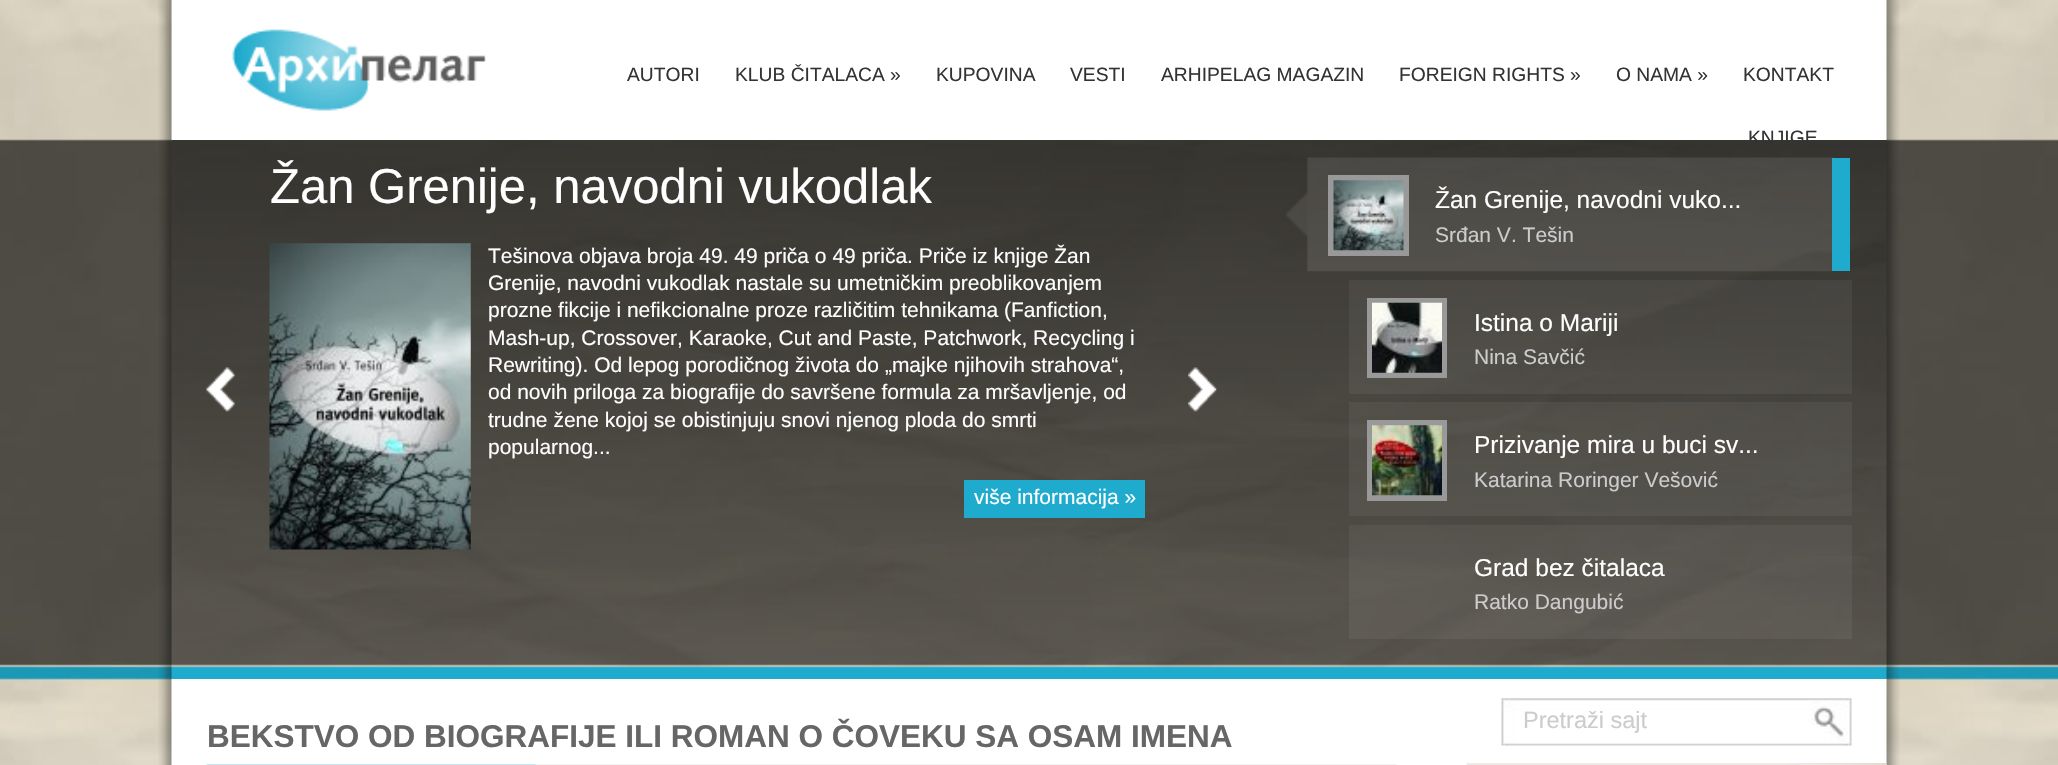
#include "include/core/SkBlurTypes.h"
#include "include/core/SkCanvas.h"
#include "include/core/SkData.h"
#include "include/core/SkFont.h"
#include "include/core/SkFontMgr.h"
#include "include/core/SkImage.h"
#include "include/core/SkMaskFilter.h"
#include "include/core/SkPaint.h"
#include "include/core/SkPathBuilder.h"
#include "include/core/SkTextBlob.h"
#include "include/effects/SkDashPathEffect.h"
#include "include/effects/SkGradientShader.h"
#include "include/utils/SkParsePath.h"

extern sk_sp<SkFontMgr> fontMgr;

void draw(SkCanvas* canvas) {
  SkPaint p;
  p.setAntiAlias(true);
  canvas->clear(SK_ColorWHITE);
  canvas->drawImageRect(SkImages::DeferredFromEncodedData(SkData::MakeFromFileName("images/1.png")), SkRect::MakeLTRB(0, 0, 2058, 765), SkSamplingOptions());
  canvas->drawImageRect(SkImages::DeferredFromEncodedData(SkData::MakeFromFileName("images/2.png")), SkRect::MakeLTRB(158, 0, 1900, 140), SkSamplingOptions());
  canvas->drawImageRect(SkImages::DeferredFromEncodedData(SkData::MakeFromFileName("images/3.png")), SkRect::MakeLTRB(158, 140, 1900, 679), SkSamplingOptions());
  canvas->drawImageRect(SkImages::DeferredFromEncodedData(SkData::MakeFromFileName("images/4.png")), SkRect::MakeLTRB(206, 367, 235, 412), SkSamplingOptions());
  canvas->drawImageRect(SkImages::DeferredFromEncodedData(SkData::MakeFromFileName("images/5.png")), SkRect::MakeLTRB(269, 243, 471, 550), SkSamplingOptions());
  p.setColor(SkColorSetRGB(31, 171, 205));
  canvas->drawRect(SkRect::MakeLTRB(964, 480, 1145, 518), p);
  canvas->drawImageRect(SkImages::DeferredFromEncodedData(SkData::MakeFromFileName("images/6.png")), SkRect::MakeLTRB(1188, 367, 1217, 412), SkSamplingOptions());
  canvas->drawImageRect(SkImages::DeferredFromEncodedData(SkData::MakeFromFileName("images/7.png")), SkRect::MakeLTRB(1286, 157, 1834, 272), SkSamplingOptions());
  canvas->drawRect(SkRect::MakeLTRB(1832, 158, 1850, 271), p);
  p.setColor(SkColorSetRGB(153, 153, 153));
  canvas->drawRect(SkRect::MakeLTRB(1328, 175, 1409, 256), p);
  canvas->drawImageRect(SkImages::DeferredFromEncodedData(SkData::MakeFromFileName("images/8.png")), SkRect::MakeLTRB(1333, 180, 1404, 251), SkSamplingOptions());
  p.setColor(SkColorSetARGB(13, 255, 255, 255));
  canvas->drawRect(SkRect::MakeLTRB(1349, 280, 1852, 394), p);
  p.setColor(SkColorSetRGB(153, 153, 153));
  canvas->drawRect(SkRect::MakeLTRB(1367, 298, 1447, 378), p);
  canvas->drawImageRect(SkImages::DeferredFromEncodedData(SkData::MakeFromFileName("images/9.png")), SkRect::MakeLTRB(1372, 302, 1442, 373), SkSamplingOptions());
  p.setColor(SkColorSetARGB(13, 255, 255, 255));
  canvas->drawRect(SkRect::MakeLTRB(1349, 402, 1852, 516), p);
  p.setColor(SkColorSetRGB(153, 153, 153));
  canvas->drawRect(SkRect::MakeLTRB(1367, 420, 1447, 501), p);
  canvas->drawImageRect(SkImages::DeferredFromEncodedData(SkData::MakeFromFileName("images/10.png")), SkRect::MakeLTRB(1372, 425, 1442, 496), SkSamplingOptions());
  p.setColor(SkColorSetARGB(13, 255, 255, 255));
  canvas->drawRect(SkRect::MakeLTRB(1349, 525, 1852, 639), p);
  canvas->drawImageRect(SkImages::DeferredFromEncodedData(SkData::MakeFromFileName("images/11.png")), SkRect::MakeLTRB(158, 679, 1900, 765), SkSamplingOptions());
  canvas->drawImageRect(SkImages::DeferredFromEncodedData(SkData::MakeFromFileName("images/12.png")), SkRect::MakeLTRB(206, 764, 1397, 765), SkSamplingOptions());
  canvas->drawImageRect(SkImages::DeferredFromEncodedData(SkData::MakeFromFileName("images/13.png")), SkRect::MakeLTRB(1501, 698, 1852, 746), SkSamplingOptions());
  canvas->drawImageRect(SkImages::DeferredFromEncodedData(SkData::MakeFromFileName("images/14.png")), SkRect::MakeLTRB(1466, 763, 1887, 765), SkSamplingOptions());
  SkFont font1(fontMgr->matchFamilyStyle("Liberation Sans", SkFontStyle::Normal()), 19.25f);
  font1.setSubpixel(true);
  p.setColor(SkColorSetRGB(51, 51, 51));
  canvas->drawString("AUTORI", 627, 81, font1, p);
  canvas->drawString("KLUB ČITALACA »", 735, 81, font1, p);
  canvas->drawString("KUPOVINA", 936, 81, font1, p);
  canvas->drawString("VESTI", 1070, 81, font1, p);
  canvas->drawString("ARHIPELAG MAGAZIN", 1161, 81, font1, p);
  canvas->drawString("FOREIGN RIGHTS »", 1399, 81, font1, p);
  canvas->drawString("O NAMA »", 1616, 81, font1, p);
  canvas->drawString("KONTAKT", 1743, 81, font1, p);
  canvas->drawString("KNJIGE", 1748, 144, font1, p);
  SkFont font2(fontMgr->matchFamilyStyle("Liberation Sans", SkFontStyle::Normal()), 49);
  font2.setSubpixel(true);
  p.setColor(SK_ColorWHITE);
  canvas->drawString("Žan Grenije, navodni vukodlak", 270, 203, font2, p);
  SkFont font3(fontMgr->matchFamilyStyle("Liberation Sans", SkFontStyle::Normal()), 21);
  font3.setSubpixel(true);
  canvas->drawString("Tešinova objava broja 49. 49 priča o 49 priča. Priče iz knjige Žan", 488, 263, font3, p);
  canvas->drawString("Grenije, navodni vukodlak nastale su umetničkim preoblikovanjem", 488, 290, font3, p);
  canvas->drawString("prozne fikcije i nefikcionalne proze različitim tehnikama (Fanfiction,", 488, 317, font3, p);
  canvas->drawString("Mash-up, Crossover, Karaoke, Cut and Paste, Patchwork, Recycling i", 488, 345, font3, p);
  canvas->drawString("Rewriting). Od lepog porodičnog života do „majke njihovih strahova“,", 488, 372, font3, p);
  canvas->drawString("od novih priloga za biografije do savršene formula za mršavljenje, od", 488, 399, font3, p);
  canvas->drawString("trudne žene kojoj se obistinjuju snovi njenog ploda do smrti", 488, 427, font3, p);
  canvas->drawString("popularnog...", 488, 454, font3, p);
  canvas->drawString("više informacija »", 974, 504, font3, p);
  SkFont font4(fontMgr->matchFamilyStyle("Liberation Sans", SkFontStyle::Normal()), 24.5f);
  font4.setSubpixel(true);
  canvas->drawString("Žan Grenije, navodni vuko...", 1435, 208, font4, p);
  p.setColor(SkColorSetRGB(204, 204, 204));
  canvas->drawString("Srđan V. Tešin", 1435, 242, font3, p);
  p.setColor(SK_ColorWHITE);
  canvas->drawString("Istina o Mariji", 1474, 331, font4, p);
  p.setColor(SkColorSetRGB(204, 204, 204));
  canvas->drawString("Nina Savčić", 1474, 364, font3, p);
  p.setColor(SK_ColorWHITE);
  canvas->drawString("Prizivanje mira u buci sv...", 1474, 453, font4, p);
  p.setColor(SkColorSetRGB(204, 204, 204));
  canvas->drawString("Katarina Roringer Vešović", 1474, 487, font3, p);
  p.setColor(SK_ColorWHITE);
  canvas->drawString("Grad bez čitalaca", 1474, 576, font4, p);
  p.setColor(SkColorSetRGB(204, 204, 204));
  canvas->drawString("Ratko Dangubić", 1474, 609, font3, p);
  SkFont font5(fontMgr->matchFamilyStyle("Liberation Sans", SkFontStyle::Bold()), 31.5f);
  font5.setSubpixel(true);
  p.setColor(SkColorSetRGB(102, 102, 102));
  canvas->drawString("BEKSTVO OD BIOGRAFIJE ILI ROMAN O ČOVEKU SA OSAM IMENA", 207, 747, font5, p);
  SkFont font6(fontMgr->matchFamilyStyle("Liberation Sans", SkFontStyle::Normal()), 23.5f);
  font6.setSubpixel(true);
  p.setColor(SkColorSetRGB(204, 204, 204));
  canvas->drawString("Pretraži sajt", 1523, 728, font6, p);
}
